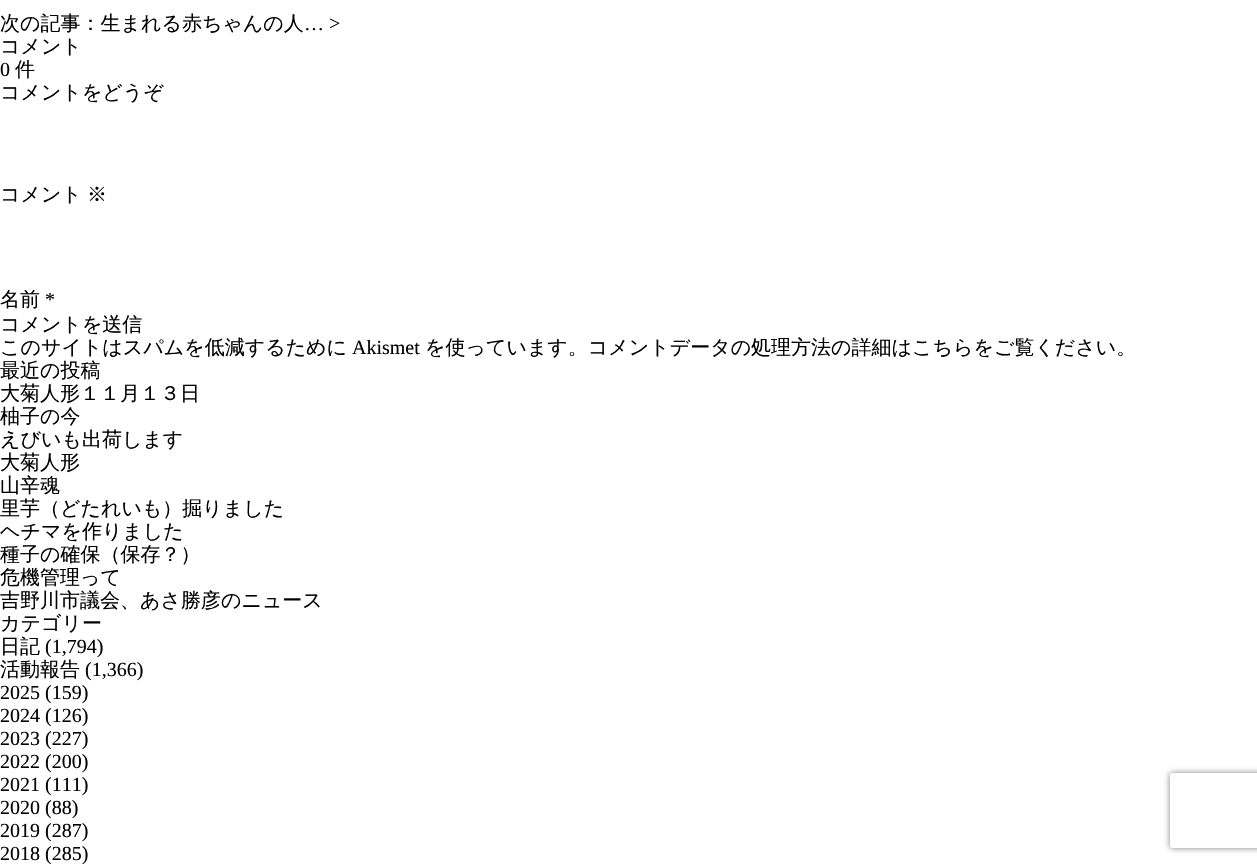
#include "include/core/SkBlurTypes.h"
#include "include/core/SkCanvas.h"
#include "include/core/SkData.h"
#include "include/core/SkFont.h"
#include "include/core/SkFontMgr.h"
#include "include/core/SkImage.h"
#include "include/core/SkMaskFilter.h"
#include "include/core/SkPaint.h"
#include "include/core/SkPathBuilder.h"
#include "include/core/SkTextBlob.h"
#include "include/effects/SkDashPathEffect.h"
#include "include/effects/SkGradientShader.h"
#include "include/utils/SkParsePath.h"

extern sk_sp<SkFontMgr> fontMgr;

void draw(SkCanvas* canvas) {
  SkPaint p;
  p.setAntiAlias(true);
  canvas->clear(SK_ColorWHITE);
  canvas->save();
  canvas->clipPath(SkPathBuilder(SkPathFillType::kEvenOdd).moveTo(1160, 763).lineTo(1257, 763).lineTo(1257, 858).lineTo(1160, 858).close().moveTo(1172.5f, 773).lineTo(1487.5f, 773).cubicTo(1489, 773, 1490, 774, 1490, 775.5f).lineTo(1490, 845.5f).cubicTo(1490, 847, 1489, 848, 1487.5f, 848).lineTo(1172.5f, 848).cubicTo(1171, 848, 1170, 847, 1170, 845.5f).lineTo(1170, 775.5f).cubicTo(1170, 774, 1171, 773, 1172.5f, 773).close().detach(), true);
  p.setColor(SkColorSetRGB(128, 128, 128));
  p.setMaskFilter(SkMaskFilter::MakeBlur(kNormal_SkBlurStyle, 3));
  canvas->drawRoundRect(SkRect::MakeLTRB(1170, 773, 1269, 848), 2.5f, 2.5f, p);
  p.setMaskFilter(nullptr);
  canvas->restore();
  SkFont font1(fontMgr->matchFamilyStyle("WenQuanYi Zen Hei", SkFontStyle(500, SkFontStyle::kNormal_Width, SkFontStyle::kUpright_Slant)), 20);
  font1.setSubpixel(true);
  p.setColor(SK_ColorBLACK);
  canvas->drawString("次の記事：生まれる赤ちゃんの人", 0, 30, font1, p);
  SkFont font2(fontMgr->matchFamilyStyle("Liberation Serif", SkFontStyle::Normal()), 20);
  font2.setSubpixel(true);
  canvas->drawString("… >", 304, 30, font2, p);
  canvas->drawString("コメント", 0, 53, font1, p);
  canvas->drawString("0", 0, 76, font2, p);
  canvas->drawString("件", 15, 76, font1, p);
  canvas->drawString("コメントをどうぞ", 0, 99, font1, p);
  canvas->drawString("コメント", 0, 201, font1, p);
  canvas->drawString("※", 87, 201, font1, p);
  canvas->drawString("名前", 0, 306, font1, p);
  canvas->drawString("*", 45, 306, font2, p);
  canvas->drawString("コメントを送信", 0, 331, font1, p);
  canvas->drawString("このサイトはスパムを低減するために", 0, 354, font1, p);
  canvas->drawString("Akismet", 352, 354, font2, p);
  canvas->drawString("を使っています。コメントデータの処理方法の詳細はこちらをご覧ください。", 425, 354, font1, p);
  canvas->drawString("最近の投稿", 0, 377, font1, p);
  canvas->drawString("大菊人形１１月１３日", 0, 400, font1, p);
  canvas->drawString("柚子の今", 0, 423, font1, p);
  canvas->drawString("えびいも出荷します", 0, 446, font1, p);
  canvas->drawString("大菊人形", 0, 469, font1, p);
  canvas->drawString("山辛魂", 0, 492, font1, p);
  canvas->drawString("里芋（どたれいも）掘りました", 0, 515, font1, p);
  canvas->drawString("ヘチマを作りました", 0, 538, font1, p);
  canvas->drawString("種子の確保（保存？）", 0, 561, font1, p);
  canvas->drawString("危機管理って", 0, 584, font1, p);
  canvas->drawString("吉野川市議会、あさ勝彦のニュース", 0, 607, font1, p);
  canvas->drawString("カテゴリー", 0, 630, font1, p);
  canvas->drawString("日記", 0, 653, font1, p);
  canvas->drawString("(1,794)", 45, 653, font2, p);
  canvas->drawString("活動報告", 0, 676, font1, p);
  canvas->drawString("(1,366)", 85, 676, font2, p);
  canvas->drawString("2025 (159)", 0, 699, font2, p);
  canvas->drawString("2024 (126)", 0, 722, font2, p);
  canvas->drawString("2023 (227)", 0, 745, font2, p);
  canvas->drawString("2022 (200)", 0, 768, font2, p);
  canvas->drawString("2021 (111)", 0, 791, font2, p);
  canvas->drawString("2020 (88)", 0, 814, font2, p);
  canvas->drawString("2019 (287)", 0, 837, font2, p);
  canvas->drawString("2018 (285)", 0, 860, font2, p);
}
